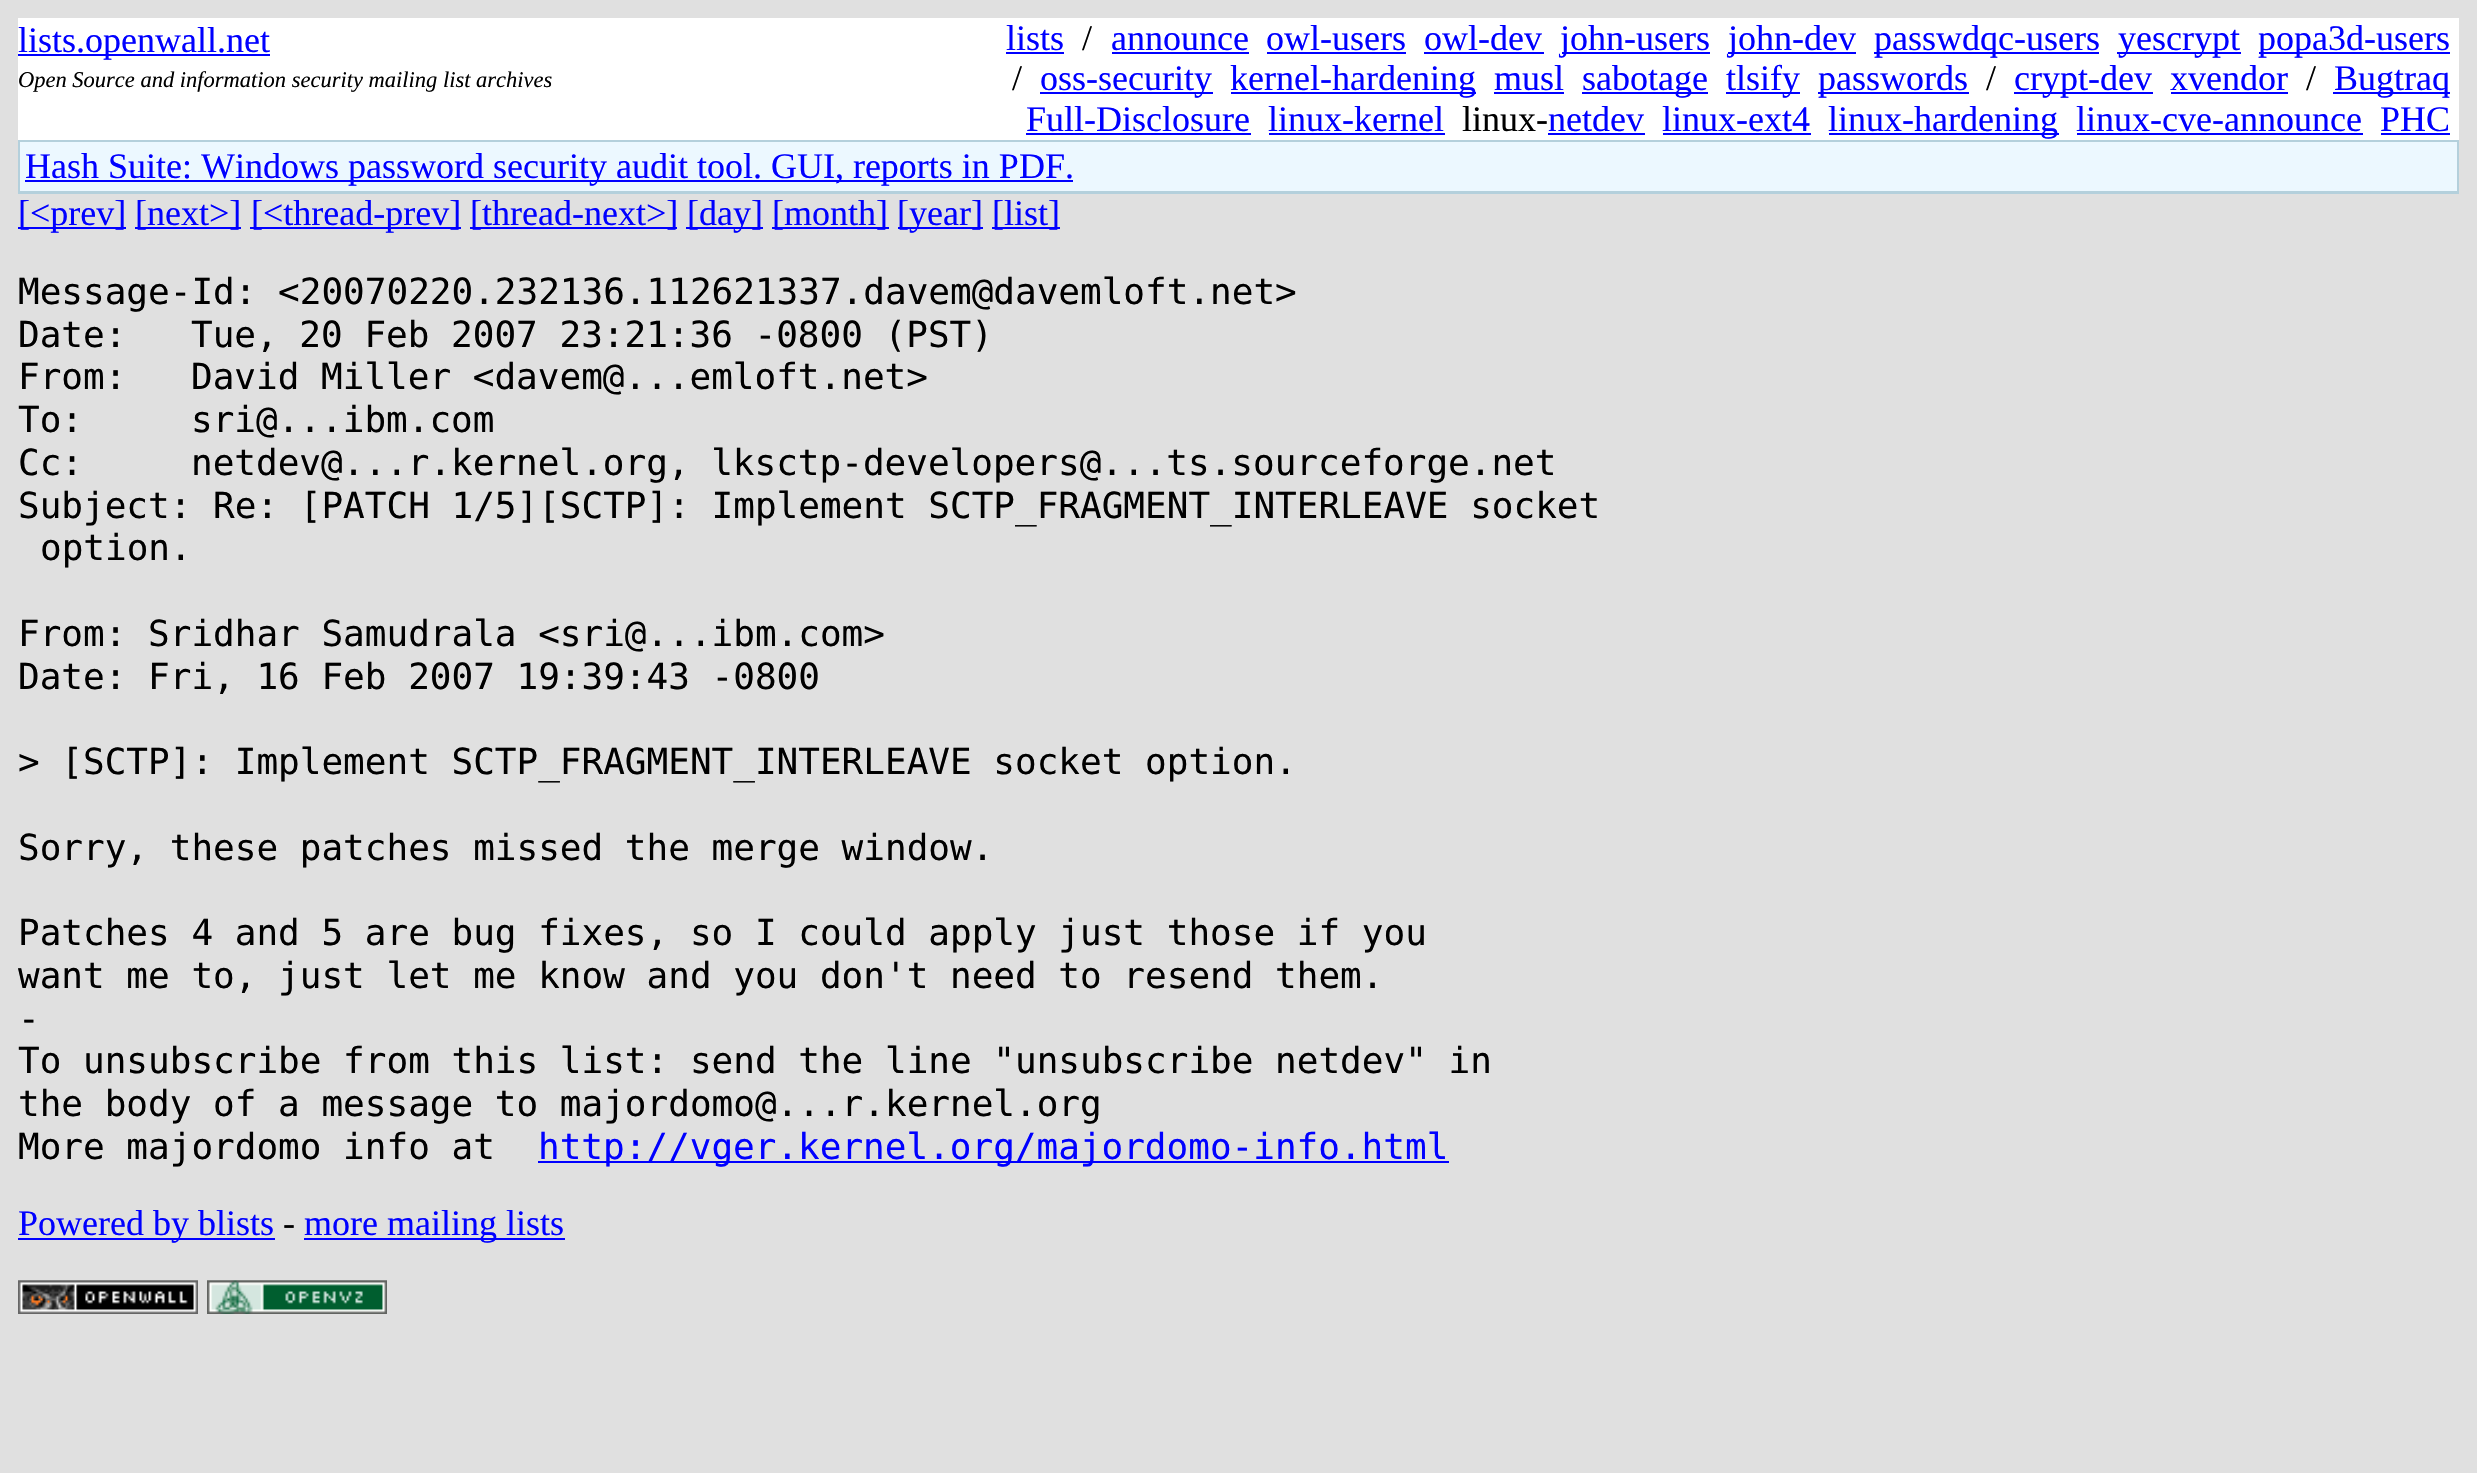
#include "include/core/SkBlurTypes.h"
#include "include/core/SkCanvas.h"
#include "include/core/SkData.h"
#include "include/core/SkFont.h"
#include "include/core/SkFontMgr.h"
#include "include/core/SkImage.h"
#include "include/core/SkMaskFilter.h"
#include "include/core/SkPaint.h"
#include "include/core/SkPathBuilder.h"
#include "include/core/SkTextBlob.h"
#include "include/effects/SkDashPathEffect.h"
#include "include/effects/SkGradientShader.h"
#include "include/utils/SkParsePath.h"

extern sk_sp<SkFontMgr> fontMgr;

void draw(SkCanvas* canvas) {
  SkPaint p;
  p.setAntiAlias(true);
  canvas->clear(SkColorSetRGB(224, 224, 224));
  p.setColor(SK_ColorWHITE);
  canvas->drawRect(SkRect::MakeLTRB(18, 18, 2459, 140), p);
  p.setColor(SkColorSetRGB(0, 0, 255));
  canvas->drawRect(SkRect::MakeLTRB(18, 54, 270, 56), p);
  canvas->drawRect(SkRect::MakeLTRB(1006, 52, 1064, 54), p);
  canvas->drawRect(SkRect::MakeLTRB(1112, 52, 1249, 54), p);
  canvas->drawRect(SkRect::MakeLTRB(1267, 52, 1406, 54), p);
  canvas->drawRect(SkRect::MakeLTRB(1424, 52, 1544, 54), p);
  canvas->drawRect(SkRect::MakeLTRB(1562, 52, 1710, 54), p);
  canvas->drawRect(SkRect::MakeLTRB(1728, 52, 1856, 54), p);
  canvas->drawRect(SkRect::MakeLTRB(1874, 52, 2099, 54), p);
  canvas->drawRect(SkRect::MakeLTRB(2117, 52, 2241, 54), p);
  canvas->drawRect(SkRect::MakeLTRB(2259, 52, 2450, 54), p);
  canvas->drawRect(SkRect::MakeLTRB(1040, 92, 1213, 94), p);
  canvas->drawRect(SkRect::MakeLTRB(1231, 92, 1476, 94), p);
  canvas->drawRect(SkRect::MakeLTRB(1494, 92, 1564, 94), p);
  canvas->drawRect(SkRect::MakeLTRB(1582, 92, 1708, 94), p);
  canvas->drawRect(SkRect::MakeLTRB(1726, 92, 1800, 94), p);
  canvas->drawRect(SkRect::MakeLTRB(1818, 92, 1969, 94), p);
  canvas->drawRect(SkRect::MakeLTRB(2014, 92, 2153, 94), p);
  canvas->drawRect(SkRect::MakeLTRB(2171, 92, 2288, 94), p);
  canvas->drawRect(SkRect::MakeLTRB(2333, 92, 2450, 94), p);
  canvas->drawRect(SkRect::MakeLTRB(1026, 133, 1251, 135), p);
  canvas->drawRect(SkRect::MakeLTRB(1269, 133, 1445, 135), p);
  canvas->drawRect(SkRect::MakeLTRB(1548, 133, 1645, 135), p);
  canvas->drawRect(SkRect::MakeLTRB(1663, 133, 1811, 135), p);
  canvas->drawRect(SkRect::MakeLTRB(1829, 133, 2059, 135), p);
  canvas->drawRect(SkRect::MakeLTRB(2077, 133, 2363, 135), p);
  canvas->drawRect(SkRect::MakeLTRB(2381, 133, 2450, 135), p);
  p.setColor(SkColorSetRGB(180, 208, 220));
  canvas->drawRect(SkRect::MakeLTRB(18, 140, 2459, 194), p);
  p.setColor(SkColorSetRGB(236, 248, 255));
  canvas->drawRect(SkRect::MakeLTRB(20, 142, 2457, 191), p);
  p.setColor(SkColorSetRGB(0, 0, 255));
  canvas->drawRect(SkRect::MakeLTRB(25, 180, 1073, 182), p);
  canvas->drawRect(SkRect::MakeLTRB(18, 227, 126, 229), p);
  canvas->drawRect(SkRect::MakeLTRB(135, 227, 241, 229), p);
  canvas->drawRect(SkRect::MakeLTRB(250, 227, 461, 229), p);
  canvas->drawRect(SkRect::MakeLTRB(470, 227, 677, 229), p);
  canvas->drawRect(SkRect::MakeLTRB(686, 227, 763, 229), p);
  canvas->drawRect(SkRect::MakeLTRB(772, 227, 889, 229), p);
  canvas->drawRect(SkRect::MakeLTRB(898, 227, 983, 229), p);
  canvas->drawRect(SkRect::MakeLTRB(992, 227, 1060, 229), p);
  canvas->drawRect(SkRect::MakeLTRB(538, 1161, 1449, 1163), p);
  canvas->drawRect(SkRect::MakeLTRB(18, 1238, 275, 1240), p);
  canvas->drawRect(SkRect::MakeLTRB(304, 1238, 565, 1240), p);
  canvas->drawImageRect(SkImages::DeferredFromEncodedData(SkData::MakeFromFileName("images/1.png")), SkRect::MakeLTRB(18, 1280, 198, 1314), SkSamplingOptions());
  canvas->drawImageRect(SkImages::DeferredFromEncodedData(SkData::MakeFromFileName("images/2.png")), SkRect::MakeLTRB(207, 1280, 387, 1314), SkSamplingOptions());
  SkFont font1(fontMgr->matchFamilyStyle("Liberation Serif", SkFontStyle::Normal()), 36);
  font1.setSubpixel(true);
  canvas->drawString("lists.openwall.net", 18, 52, font1, p);
  canvas->drawString("lists", 1006, 50, font1, p);
  p.setColor(SK_ColorBLACK);
  canvas->drawString("/", 1082, 50, font1, p);
  p.setColor(SkColorSetRGB(0, 0, 255));
  canvas->drawString("announce", 1111, 50, font1, p);
  canvas->drawString("owl-users", 1266, 50, font1, p);
  canvas->drawString("owl-dev", 1424, 50, font1, p);
  canvas->drawString("john-users", 1560, 50, font1, p);
  canvas->drawString("john-dev", 1728, 50, font1, p);
  canvas->drawString("passwdqc-users", 1874, 50, font1, p);
  canvas->drawString("yescrypt", 2118, 50, font1, p);
  canvas->drawString("popa3d-users", 2258, 50, font1, p);
  p.setColor(SK_ColorBLACK);
  canvas->drawString("/", 1012, 90, font1, p);
  p.setColor(SkColorSetRGB(0, 0, 255));
  canvas->drawString("oss-security", 1040, 90, font1, p);
  canvas->drawString("kernel-hardening", 1230, 90, font1, p);
  canvas->drawString("musl", 1494, 90, font1, p);
  canvas->drawString("sabotage", 1582, 90, font1, p);
  canvas->drawString("tlsify", 1726, 90, font1, p);
  canvas->drawString("passwords", 1818, 90, font1, p);
  p.setColor(SK_ColorBLACK);
  canvas->drawString("/", 1986, 90, font1, p);
  p.setColor(SkColorSetRGB(0, 0, 255));
  canvas->drawString("crypt-dev", 2014, 90, font1, p);
  canvas->drawString("xvendor", 2170, 90, font1, p);
  p.setColor(SK_ColorBLACK);
  canvas->drawString("/", 2306, 90, font1, p);
  p.setColor(SkColorSetRGB(0, 0, 255));
  canvas->drawString("Bugtraq", 2334, 90, font1, p);
  canvas->drawString("Full-Disclosure", 1026, 131, font1, p);
  canvas->drawString("linux-kernel", 1268, 131, font1, p);
  p.setColor(SK_ColorBLACK);
  canvas->drawString("linux-", 1462, 131, font1, p);
  p.setColor(SkColorSetRGB(0, 0, 255));
  canvas->drawString("netdev", 1548, 131, font1, p);
  canvas->drawString("linux-ext4", 1662, 131, font1, p);
  canvas->drawString("linux-hardening", 1828, 131, font1, p);
  canvas->drawString("linux-cve-announce", 2076, 131, font1, p);
  canvas->drawString("PHC", 2380, 131, font1, p);
  SkFont font2(fontMgr->matchFamilyStyle("Liberation Serif", SkFontStyle::Italic()), 22.5f);
  font2.setSubpixel(true);
  p.setColor(SK_ColorBLACK);
  canvas->drawString("Open Source and information security mailing list archives", 18, 87, font2, p);
  p.setColor(SkColorSetRGB(0, 0, 255));
  canvas->drawString("Hash Suite: Windows password security audit tool. GUI, reports in PDF.", 25, 178, font1, p);
  canvas->drawString("[<prev]", 18, 225, font1, p);
  canvas->drawString("[next>]", 135, 225, font1, p);
  canvas->drawString("[<thread-prev]", 251, 225, font1, p);
  canvas->drawString("[thread-next>]", 470, 225, font1, p);
  canvas->drawString("[day]", 687, 225, font1, p);
  canvas->drawString("[month]", 772, 225, font1, p);
  canvas->drawString("[year]", 897, 225, font1, p);
  canvas->drawString("[list]", 992, 225, font1, p);
  SkFont font3(fontMgr->matchFamilyStyle("DejaVu Sans Mono", SkFontStyle::Normal()), 36);
  font3.setSubpixel(true);
  p.setColor(SK_ColorBLACK);
  canvas->drawString("Message-Id: <20070220.232136.112621337.davem@davemloft.net>", 18, 304, font3, p);
  canvas->drawString("Date:", 18, 347, font3, p);
  canvas->drawString("Tue, 20 Feb 2007 23:21:36 -0800 (PST)", 191, 347, font3, p);
  canvas->drawString("From:", 18, 389, font3, p);
  canvas->drawString("David Miller <davem@...emloft.net>", 191, 389, font3, p);
  canvas->drawString("To:", 18, 432, font3, p);
  canvas->drawString("sri@...ibm.com", 191, 432, font3, p);
  canvas->drawString("Cc:", 18, 475, font3, p);
  canvas->drawString("netdev@...r.kernel.org, lksctp-developers@...ts.sourceforge.net", 191, 475, font3, p);
  canvas->drawString("Subject: Re: [PATCH 1/5][SCTP]: Implement SCTP_FRAGMENT_INTERLEAVE socket", 18, 518, font3, p);
  canvas->drawString("option.", 40, 560, font3, p);
  canvas->drawString("From: Sridhar Samudrala <sri@...ibm.com>", 18, 646, font3, p);
  canvas->drawString("Date: Fri, 16 Feb 2007 19:39:43 -0800", 18, 689, font3, p);
  canvas->drawString("> [SCTP]: Implement SCTP_FRAGMENT_INTERLEAVE socket option.", 18, 774, font3, p);
  canvas->drawString("Sorry, these patches missed the merge window.", 18, 860, font3, p);
  canvas->drawString("Patches 4 and 5 are bug fixes, so I could apply just those if you", 18, 945, font3, p);
  canvas->drawString("want me to, just let me know and you don't need to resend them.", 18, 988, font3, p);
  canvas->drawString("-", 18, 1031, font3, p);
  canvas->drawString("To unsubscribe from this list: send the line \"unsubscribe netdev\" in", 18, 1073, font3, p);
  canvas->drawString("the body of a message to majordomo@...r.kernel.org", 18, 1116, font3, p);
  canvas->drawString("More majordomo info at", 18, 1159, font3, p);
  p.setColor(SkColorSetRGB(0, 0, 255));
  canvas->drawString("http://vger.kernel.org/majordomo-info.html", 538, 1159, font3, p);
  canvas->drawString("Powered by blists", 18, 1235, font1, p);
  p.setColor(SK_ColorBLACK);
  canvas->drawString("-", 283, 1235, font1, p);
  p.setColor(SkColorSetRGB(0, 0, 255));
  canvas->drawString("more mailing lists", 304, 1235, font1, p);
}
